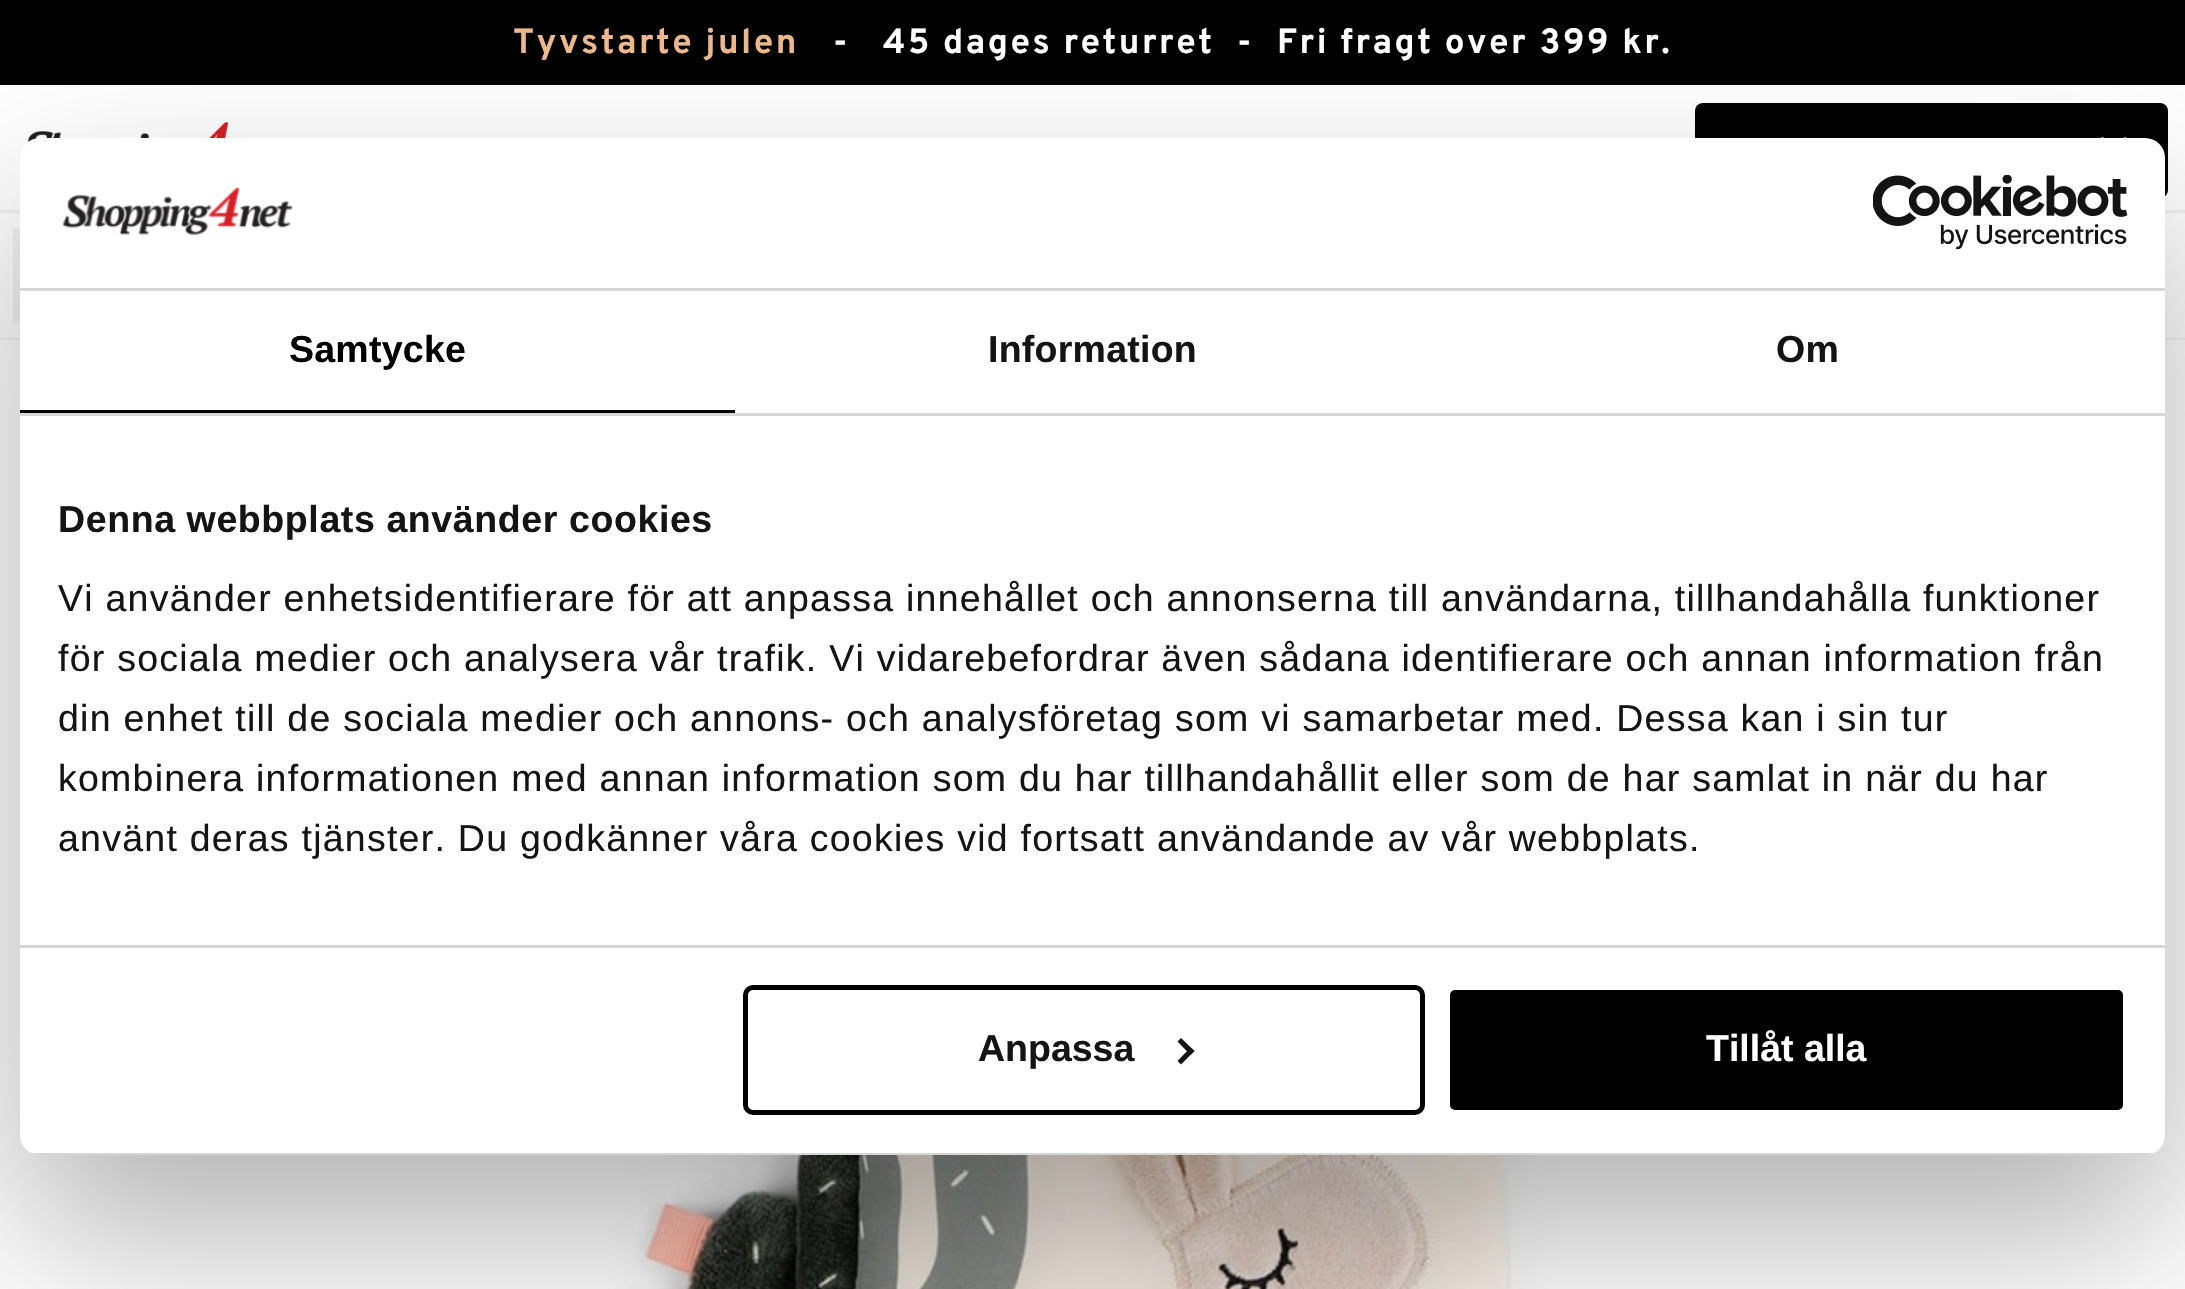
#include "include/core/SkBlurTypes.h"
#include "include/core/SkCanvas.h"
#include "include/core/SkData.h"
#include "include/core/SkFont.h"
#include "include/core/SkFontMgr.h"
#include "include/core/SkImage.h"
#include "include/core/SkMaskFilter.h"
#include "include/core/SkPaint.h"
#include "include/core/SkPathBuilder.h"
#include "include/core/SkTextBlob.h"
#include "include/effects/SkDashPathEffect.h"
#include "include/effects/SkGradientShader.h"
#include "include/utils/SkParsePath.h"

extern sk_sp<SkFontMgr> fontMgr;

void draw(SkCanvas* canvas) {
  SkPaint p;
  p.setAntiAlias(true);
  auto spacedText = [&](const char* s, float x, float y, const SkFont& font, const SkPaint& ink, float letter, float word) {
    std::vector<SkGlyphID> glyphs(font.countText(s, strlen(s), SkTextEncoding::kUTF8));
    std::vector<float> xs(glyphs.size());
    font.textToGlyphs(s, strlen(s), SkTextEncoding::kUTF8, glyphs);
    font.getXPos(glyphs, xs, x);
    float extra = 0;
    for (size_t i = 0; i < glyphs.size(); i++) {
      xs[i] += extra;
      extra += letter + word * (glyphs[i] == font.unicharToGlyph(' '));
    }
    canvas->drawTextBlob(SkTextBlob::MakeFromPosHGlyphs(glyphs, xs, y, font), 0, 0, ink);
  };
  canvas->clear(SK_ColorWHITE);
  p.setColor(SK_ColorBLACK);
  canvas->drawRect(SkRect::MakeLTRB(0, 0, 2185, 85), p);
  p.setColor(SkColorSetRGB(241, 241, 241));
  canvas->drawRect(SkRect::MakeLTRB(0, 210, 2185, 213), p);
  canvas->drawRect(SkRect::MakeLTRB(0, 338, 2185, 340), p);
  p.setColor(SK_ColorBLACK);
  canvas->drawRoundRect(SkRect::MakeLTRB(1695, 103, 2168, 198), 8, 8, p);
  canvas->drawImageRect(SkImages::DeferredFromEncodedData(SkData::MakeFromFileName("images/1.png")), SkRect::MakeLTRB(2100, 137, 2127, 138), SkSamplingOptions());
  canvas->drawImageRect(SkImages::DeferredFromEncodedData(SkData::MakeFromFileName("images/2.png")), SkRect::MakeLTRB(28, 122, 229, 142), SkSamplingOptions());
  p.setColor(SkColorSetRGB(244, 244, 244));
  canvas->drawRect(SkRect::MakeLTRB(13, 228, 20, 323), p);
  canvas->drawImageRect(SkImages::DeferredFromEncodedData(SkData::MakeFromFileName("images/3.png")), SkRect::MakeLTRB(613, 1155, 1593, 1289), SkSamplingOptions());
  p.setColor(SkColorSetARGB(77, 0, 0, 0));
  p.setMaskFilter(SkMaskFilter::MakeBlur(kNormal_SkBlurStyle, 85));
  canvas->drawRoundRect(SkRect::MakeLTRB(20, 218, 2165, 1235), 20, 20, p);
  p.setMaskFilter(nullptr);
  p.setColor(SK_ColorWHITE);
  canvas->drawRoundRect(SkRect::MakeLTRB(20, 138, 2165, 1155), 20, 20, p);
  p.setColor(SkColorSetRGB(214, 214, 214));
  canvas->drawRect(SkRect::MakeLTRB(20, 288, 2165, 291), p);
  canvas->drawImageRect(SkImages::DeferredFromEncodedData(SkData::MakeFromFileName("images/4.png")), SkRect::MakeLTRB(62, 187, 293, 236), SkSamplingOptions());
  canvas->drawImageRect(SkImages::DeferredFromEncodedData(SkData::MakeFromFileName("images/5.png")), SkRect::MakeLTRB(1873, 175, 2128, 250), SkSamplingOptions());
  canvas->drawRect(SkRect::MakeLTRB(20, 413, 2165, 416), p);
  p.setColor(SK_ColorBLACK);
  canvas->drawRect(SkRect::MakeLTRB(20, 410, 735, 413), p);
  p.setColor(SkColorSetRGB(214, 214, 214));
  canvas->drawRect(SkRect::MakeLTRB(20, 945, 2165, 948), p);
  canvas->save();
  canvas->clipPath(SkPathBuilder().moveTo(40, 138).lineTo(2145, 138).cubicTo(2156, 138, 2165, 147, 2165, 158).lineTo(2165, 1135).cubicTo(2165, 1146, 2156, 1155, 2145, 1155).lineTo(40, 1155).cubicTo(29, 1155, 20, 1146, 20, 1135).lineTo(20, 158).cubicTo(20, 147, 29, 138, 40, 138).close().detach(), true);
  canvas->drawRect(SkRect::MakeLTRB(31, 1153, 2154, 1155), p);
  canvas->restore();
  p.setStyle(SkPaint::kStroke_Style);
  p.setStrokeWidth(5);
  p.setColor(SK_ColorBLACK);
  canvas->drawRoundRect(SkRect::MakeLTRB(745.5f, 987.5f, 1422.5f, 1112.5f), 7.5f, 7.5f, p);
  p.setStyle(SkPaint::kFill_Style);
  p.setColor(SkColorSetRGB(20, 20, 20));
  canvas->drawPath(SkPathBuilder().moveTo(1181, 1038).lineTo(1194.5f, 1051).lineTo(1190.5f, 1055).lineTo(1177.5f, 1041.5f).close().detach(), p);
  canvas->drawPath(SkPathBuilder().moveTo(1190.5f, 1047.5f).lineTo(1194.5f, 1051).lineTo(1181, 1064.5f).lineTo(1177.5f, 1061).close().detach(), p);
  p.setColor(SK_ColorBLACK);
  canvas->drawRoundRect(SkRect::MakeLTRB(1447.5f, 987.5f, 2125.5f, 1112.5f), 7.5f, 7.5f, p);
  p.setStyle(SkPaint::kStroke_Style);
  p.setColor(SK_ColorWHITE);
  canvas->drawRoundRect(SkRect::MakeLTRB(1447.5f, 987.5f, 2125.5f, 1112.5f), 7.5f, 7.5f, p);
  SkFont font1(fontMgr->matchFamilyStyle("Overpass", SkFontStyle::Bold()), 35);
  font1.setSubpixel(true);
  p.setStyle(SkPaint::kFill_Style);
  p.setColor(SkColorSetRGB(237, 184, 139));
  spacedText("Tyvstarte julen", 513, 53, font1, p, 2.5f, 0);
  p.setColor(SK_ColorWHITE);
  spacedText("-", 833, 53, font1, p, 2.5f, 0);
  spacedText("45 dages returret  -", 883, 53, font1, p, 2.5f, 0);
  spacedText("Fri fragt over 399 kr.", 1277, 53, font1, p, 2.5f, 0);
  SkFont font2(fontMgr->matchFamilyStyle("Liberation Sans", SkFontStyle::Bold()), 37.5f);
  font2.setSubpixel(true);
  p.setColor(SK_ColorBLACK);
  spacedText("Samtycke", 289, 362, font2, p, 0.25f, 0);
  p.setColor(SkColorSetRGB(20, 20, 20));
  spacedText("Information", 988, 362, font2, p, 0.25f, 0);
  spacedText("Om", 1776, 362, font2, p, 0.25f, 0);
  spacedText("Denna webbplats använder cookies", 58, 532, font2, p, 0.6f, 0);
  SkFont font3(fontMgr->matchFamilyStyle("Liberation Sans", SkFontStyle::Normal()), 37.5f);
  font3.setSubpixel(true);
  spacedText("Vi använder enhetsidentifierare för att anpassa innehållet och annonserna till användarna, tillhandahålla funktioner", 58, 611, font3, p, 1.25f, 0);
  spacedText("för sociala medier och analysera vår trafik. Vi vidarebefordrar även sådana identifierare och annan information från", 58, 671, font3, p, 1.25f, 0);
  spacedText("din enhet till de sociala medier och annons- och analysföretag som vi samarbetar med. Dessa kan i sin tur", 58, 731, font3, p, 1.25f, 0);
  spacedText("kombinera informationen med annan information som du har tillhandahållit eller som de har samlat in när du har", 58, 791, font3, p, 1.25f, 0);
  spacedText("använt deras tjänster. Du godkänner våra cookies vid fortsatt användande av vår webbplats.", 58, 851, font3, p, 1.25f, 0);
  canvas->drawString("Anpassa", 978, 1061, font2, p);
  p.setColor(SK_ColorWHITE);
  canvas->drawString("Tillåt alla", 1706, 1061, font2, p);
}
